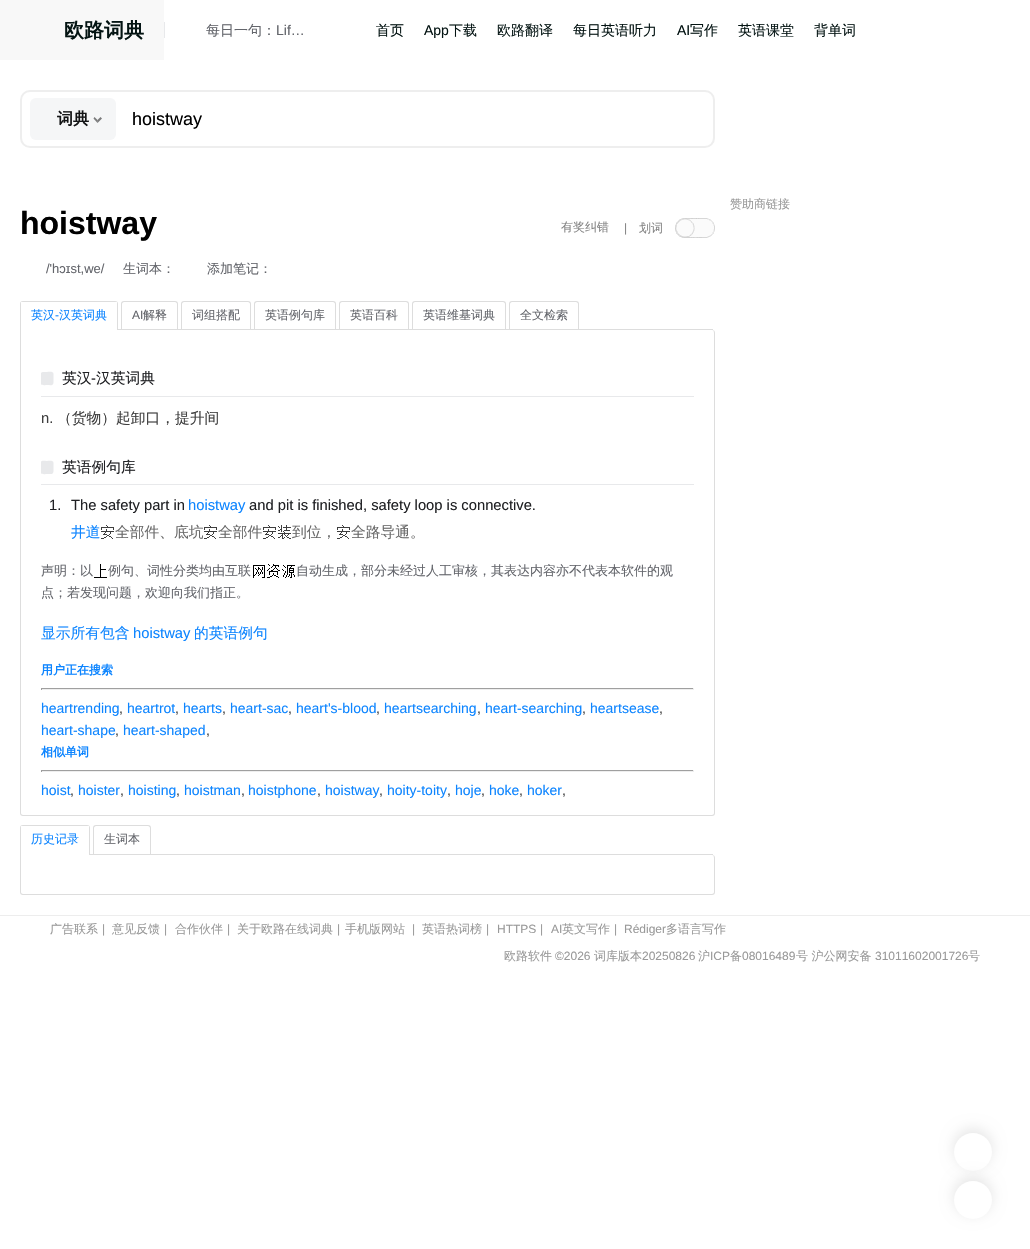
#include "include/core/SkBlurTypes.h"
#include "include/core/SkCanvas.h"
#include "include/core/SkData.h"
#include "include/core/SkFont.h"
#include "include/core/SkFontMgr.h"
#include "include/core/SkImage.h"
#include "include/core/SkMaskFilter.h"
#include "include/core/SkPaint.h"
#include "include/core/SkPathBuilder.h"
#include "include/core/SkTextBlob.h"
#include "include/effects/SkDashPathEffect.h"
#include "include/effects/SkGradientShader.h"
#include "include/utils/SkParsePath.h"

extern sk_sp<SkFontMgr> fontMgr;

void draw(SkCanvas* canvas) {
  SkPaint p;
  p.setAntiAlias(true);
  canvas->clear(SK_ColorWHITE);
  p.setColor(SkColorSetRGB(248, 248, 248));
  canvas->drawRect(SkRect::MakeLTRB(0, 0, 164, 60), p);
  p.setColor(SkColorSetRGB(232, 233, 235));
  canvas->drawRect(SkRect::MakeLTRB(164, 22, 165, 38), p);
  p.setStyle(SkPaint::kStroke_Style);
  p.setStrokeWidth(2);
  p.setColor(SkColorSetRGB(238, 238, 238));
  canvas->drawRoundRect(SkRect::MakeLTRB(21, 91, 714, 147), 9, 9, p);
  p.setStyle(SkPaint::kFill_Style);
  p.setColor(SkColorSetRGB(245, 246, 247));
  canvas->drawRoundRect(SkRect::MakeLTRB(30, 98, 116, 140), 6, 6, p);
  p.setColor(SkColorSetRGB(123, 123, 124));
  canvas->drawPath(SkPathBuilder().moveTo(102, 118.5f).lineTo(97.5f, 123).lineTo(97.5f, 120).lineTo(100.5f, 117).close().detach(), p);
  p.setColor(SkColorSetARGB(128, 0, 0, 0));
  canvas->drawPath(SkPathBuilder().moveTo(97.5f, 123).lineTo(93.5f, 118.5f).lineTo(94.5f, 117).lineTo(97.5f, 120).close().detach(), p);
  p.setColor(SkColorSetARGB(26, 0, 0, 0));
  p.setMaskFilter(SkMaskFilter::MakeBlur(kNormal_SkBlurStyle, 7));
  canvas->drawRoundRect(SkRect::MakeLTRB(954, 1129, 992, 1167), 19, 19, p);
  p.setMaskFilter(nullptr);
  p.setColor(SK_ColorWHITE);
  canvas->drawCircle(973, 1152, 19, p);
  p.setColor(SkColorSetARGB(26, 0, 0, 0));
  p.setMaskFilter(SkMaskFilter::MakeBlur(kNormal_SkBlurStyle, 7));
  canvas->drawRoundRect(SkRect::MakeLTRB(954, 1177, 992, 1215), 19, 19, p);
  p.setMaskFilter(nullptr);
  p.setColor(SK_ColorWHITE);
  canvas->drawCircle(973, 1200, 19, p);
  canvas->drawImageRect(SkImages::DeferredFromEncodedData(SkData::MakeFromFileName("images/1.png")), SkRect::MakeLTRB(675, 218, 715, 238), SkSamplingOptions());
  p.setColor(SkColorSetRGB(221, 221, 221));
  canvas->drawRect(SkRect::MakeLTRB(118, 329, 713, 330), p);
  canvas->drawPath(SkPathBuilder(SkPathFillType::kEvenOdd).moveTo(23, 301).lineTo(115, 301).cubicTo(117, 301, 118, 302, 118, 304).lineTo(118, 330).lineTo(20, 330).lineTo(20, 304).cubicTo(20, 302, 21, 301, 23, 301).close().moveTo(23, 302).lineTo(115, 302).cubicTo(116, 302, 117, 303, 117, 304).lineTo(117, 330).lineTo(21, 330).lineTo(21, 304).cubicTo(21, 303, 22, 302, 23, 302).close().detach(), p);
  p.setColor(SK_ColorWHITE);
  canvas->drawRect(SkRect::MakeLTRB(21, 302, 117, 304), p);
  p.setColor(SkColorSetRGB(221, 221, 221));
  canvas->drawPath(SkPathBuilder(SkPathFillType::kEvenOdd).moveTo(124, 301).lineTo(175, 301).cubicTo(177, 301, 178, 302, 178, 304).lineTo(178, 329).lineTo(121, 329).lineTo(121, 304).cubicTo(121, 302, 122, 301, 124, 301).close().moveTo(124, 302).lineTo(175, 302).cubicTo(176, 302, 177, 303, 177, 304).lineTo(177, 329).lineTo(122, 329).lineTo(122, 304).cubicTo(122, 303, 123, 302, 124, 302).close().detach(), p);
  canvas->drawPath(SkPathBuilder(SkPathFillType::kEvenOdd).moveTo(184, 301).lineTo(248, 301).cubicTo(250, 301, 251, 302, 251, 304).lineTo(251, 329).lineTo(181, 329).lineTo(181, 304).cubicTo(181, 302, 182, 301, 184, 301).close().moveTo(184, 302).lineTo(248, 302).cubicTo(249, 302, 250, 303, 250, 304).lineTo(250, 329).lineTo(182, 329).lineTo(182, 304).cubicTo(182, 303, 183, 302, 184, 302).close().detach(), p);
  canvas->drawPath(SkPathBuilder(SkPathFillType::kEvenOdd).moveTo(257, 301).lineTo(333, 301).cubicTo(335, 301, 336, 302, 336, 304).lineTo(336, 329).lineTo(254, 329).lineTo(254, 304).cubicTo(254, 302, 255, 301, 257, 301).close().moveTo(257, 302).lineTo(333, 302).cubicTo(334, 302, 335, 303, 335, 304).lineTo(335, 329).lineTo(255, 329).lineTo(255, 304).cubicTo(255, 303, 256, 302, 257, 302).close().detach(), p);
  canvas->drawPath(SkPathBuilder(SkPathFillType::kEvenOdd).moveTo(342, 301).lineTo(406, 301).cubicTo(408, 301, 409, 302, 409, 304).lineTo(409, 329).lineTo(339, 329).lineTo(339, 304).cubicTo(339, 302, 340, 301, 342, 301).close().moveTo(342, 302).lineTo(406, 302).cubicTo(407, 302, 408, 303, 408, 304).lineTo(408, 329).lineTo(340, 329).lineTo(340, 304).cubicTo(340, 303, 341, 302, 342, 302).close().detach(), p);
  canvas->drawPath(SkPathBuilder(SkPathFillType::kEvenOdd).moveTo(415, 301).lineTo(503, 301).cubicTo(505, 301, 506, 302, 506, 304).lineTo(506, 329).lineTo(412, 329).lineTo(412, 304).cubicTo(412, 302, 413, 301, 415, 301).close().moveTo(415, 302).lineTo(503, 302).cubicTo(504, 302, 505, 303, 505, 304).lineTo(505, 329).lineTo(413, 329).lineTo(413, 304).cubicTo(413, 303, 414, 302, 415, 302).close().detach(), p);
  canvas->drawPath(SkPathBuilder(SkPathFillType::kEvenOdd).moveTo(512, 301).lineTo(576, 301).cubicTo(578, 301, 579, 302, 579, 304).lineTo(579, 329).lineTo(509, 329).lineTo(509, 304).cubicTo(509, 302, 510, 301, 512, 301).close().moveTo(512, 302).lineTo(576, 302).cubicTo(577, 302, 578, 303, 578, 304).lineTo(578, 329).lineTo(510, 329).lineTo(510, 304).cubicTo(510, 303, 511, 302, 512, 302).close().detach(), p);
  canvas->drawPath(SkPathBuilder(SkPathFillType::kEvenOdd).moveTo(20, 330).lineTo(712, 330).cubicTo(714, 330, 715, 331, 715, 333).lineTo(715, 813).cubicTo(715, 815, 714, 816, 712, 816).lineTo(23, 816).cubicTo(21, 816, 20, 815, 20, 813).close().moveTo(21, 330).lineTo(712, 330).cubicTo(713, 330, 714, 331, 714, 333).lineTo(714, 813).cubicTo(714, 814, 713, 815, 712, 815).lineTo(23, 815).cubicTo(22, 815, 21, 814, 21, 813).close().detach(), p);
  p.setColor(SkColorSetRGB(232, 233, 235));
  canvas->drawRect(SkRect::MakeLTRB(41, 396, 694, 397), p);
  canvas->save();
  canvas->clipRect(SkRect::MakeLTRB(41, 370, 694, 396));
  canvas->drawPath(SkPathBuilder().moveTo(53.5f, 374).lineTo(53.5f, 381.5f).cubicTo(53.5f, 386.5f, 51, 385, 47, 385).cubicTo(45.5f, 385, 40.5f, 386, 40.5f, 383).lineTo(40.5f, 375.5f).cubicTo(40.5f, 371, 43, 372, 47, 372).cubicTo(49, 372, 53.5f, 371, 53.5f, 374).close().detach(), p);
  canvas->restore();
  canvas->drawRect(SkRect::MakeLTRB(41, 484, 694, 485), p);
  canvas->save();
  canvas->clipRect(SkRect::MakeLTRB(41, 459, 694, 484));
  canvas->drawPath(SkPathBuilder().moveTo(53.5f, 463).lineTo(53.5f, 470.5f).cubicTo(53.5f, 475, 51, 474, 47, 474).cubicTo(45.5f, 474, 40.5f, 475, 40.5f, 472).lineTo(40.5f, 464.5f).cubicTo(40.5f, 459.5f, 43, 461, 47, 461).cubicTo(49, 461, 53.5f, 460, 53.5f, 463).close().detach(), p);
  canvas->restore();
  canvas->drawImageRect(SkImages::DeferredFromEncodedData(SkData::MakeFromFileName("images/2.png")), SkRect::MakeLTRB(101, 525, 114, 539), SkSamplingOptions());
  canvas->drawImageRect(SkImages::DeferredFromEncodedData(SkData::MakeFromFileName("images/2.png")), SkRect::MakeLTRB(204, 525, 217, 539), SkSamplingOptions());
  canvas->drawImageRect(SkImages::DeferredFromEncodedData(SkData::MakeFromFileName("images/2.png")), SkRect::MakeLTRB(263, 525, 276, 539), SkSamplingOptions());
  canvas->drawImageRect(SkImages::DeferredFromEncodedData(SkData::MakeFromFileName("images/3.png")), SkRect::MakeLTRB(278, 525, 291, 539), SkSamplingOptions());
  canvas->drawImageRect(SkImages::DeferredFromEncodedData(SkData::MakeFromFileName("images/2.png")), SkRect::MakeLTRB(337, 525, 350, 539), SkSamplingOptions());
  canvas->drawImageRect(SkImages::DeferredFromEncodedData(SkData::MakeFromFileName("images/4.png")), SkRect::MakeLTRB(94, 564, 107, 578), SkSamplingOptions());
  canvas->drawImageRect(SkImages::DeferredFromEncodedData(SkData::MakeFromFileName("images/5.png")), SkRect::MakeLTRB(253, 565, 265, 578), SkSamplingOptions());
  canvas->drawImageRect(SkImages::DeferredFromEncodedData(SkData::MakeFromFileName("images/6.png")), SkRect::MakeLTRB(267, 564, 280, 578), SkSamplingOptions());
  canvas->drawImageRect(SkImages::DeferredFromEncodedData(SkData::MakeFromFileName("images/7.png")), SkRect::MakeLTRB(282, 565, 295, 578), SkSamplingOptions());
  p.setColor(SkColorSetRGB(159, 159, 159));
  canvas->drawRect(SkRect::MakeLTRB(41, 688, 694, 689), p);
  p.setColor(SkColorSetRGB(238, 238, 238));
  canvas->drawRect(SkRect::MakeLTRB(693, 688, 694, 690), p);
  canvas->drawRect(SkRect::MakeLTRB(41, 689, 694, 690), p);
  p.setColor(SkColorSetRGB(159, 159, 159));
  canvas->drawRect(SkRect::MakeLTRB(41, 688, 42, 690), p);
  canvas->drawRect(SkRect::MakeLTRB(41, 770, 694, 771), p);
  p.setColor(SkColorSetRGB(238, 238, 238));
  canvas->drawRect(SkRect::MakeLTRB(693, 770, 694, 772), p);
  canvas->drawRect(SkRect::MakeLTRB(41, 771, 694, 772), p);
  p.setColor(SkColorSetRGB(159, 159, 159));
  canvas->drawRect(SkRect::MakeLTRB(41, 770, 42, 772), p);
  p.setColor(SkColorSetRGB(221, 221, 221));
  canvas->drawRect(SkRect::MakeLTRB(90, 854, 713, 855), p);
  canvas->drawPath(SkPathBuilder(SkPathFillType::kEvenOdd).moveTo(23, 825).lineTo(87, 825).cubicTo(89, 825, 90, 826, 90, 828).lineTo(90, 855).lineTo(20, 855).lineTo(20, 828).cubicTo(20, 826, 21, 825, 23, 825).close().moveTo(23, 826).lineTo(87, 826).cubicTo(88, 826, 89, 827, 89, 828).lineTo(89, 855).lineTo(21, 855).lineTo(21, 828).cubicTo(21, 827, 22, 826, 23, 826).close().detach(), p);
  p.setColor(SK_ColorWHITE);
  canvas->drawRect(SkRect::MakeLTRB(21, 826, 89, 828), p);
  p.setColor(SkColorSetRGB(221, 221, 221));
  canvas->drawPath(SkPathBuilder(SkPathFillType::kEvenOdd).moveTo(96, 825).lineTo(148, 825).cubicTo(150, 825, 151, 826, 151, 828).lineTo(151, 854).lineTo(93, 854).lineTo(93, 828).cubicTo(93, 826, 94, 825, 96, 825).close().moveTo(96, 826).lineTo(148, 826).cubicTo(149, 826, 150, 827, 150, 828).lineTo(150, 854).lineTo(94, 854).lineTo(94, 828).cubicTo(94, 827, 95, 826, 96, 826).close().detach(), p);
  canvas->drawPath(SkPathBuilder(SkPathFillType::kEvenOdd).moveTo(20, 855).lineTo(712, 855).cubicTo(714, 855, 715, 856, 715, 858).lineTo(715, 892).cubicTo(715, 894, 714, 895, 712, 895).lineTo(23, 895).cubicTo(21, 895, 20, 894, 20, 892).close().moveTo(21, 855).lineTo(712, 855).cubicTo(713, 855, 714, 856, 714, 858).lineTo(714, 892).cubicTo(714, 893, 713, 894, 712, 894).lineTo(23, 894).cubicTo(22, 894, 21, 893, 21, 892).close().detach(), p);
  p.setColor(SkColorSetRGB(237, 237, 237));
  canvas->drawRect(SkRect::MakeLTRB(0, 915, 1030, 916), p);
  SkFont font1(fontMgr->matchFamilyStyle("WenQuanYi Zen Hei", SkFontStyle::Bold()), 20);
  font1.setSubpixel(true);
  p.setColor(SkColorSetRGB(4, 20, 19));
  canvas->drawString("欧路词典", 64, 37, font1, p);
  SkFont font2(fontMgr->matchFamilyStyle("WenQuanYi Zen Hei", SkFontStyle(500, SkFontStyle::kNormal_Width, SkFontStyle::kUpright_Slant)), 14);
  font2.setSubpixel(true);
  p.setColor(SkColorSetRGB(99, 101, 107));
  canvas->drawString("每日一句：", 206, 35, font2, p);
  SkFont font3(fontMgr->matchFamilyStyle("Liberation Sans", SkFontStyle::Normal()), 14);
  font3.setSubpixel(true);
  canvas->drawString("Lif…", 276, 35, font3, p);
  p.setColor(SkColorSetRGB(4, 20, 19));
  canvas->drawString("首页", 376, 35, font2, p);
  canvas->drawString("App", 424, 35, font3, p);
  canvas->drawString("下载", 449, 35, font2, p);
  canvas->drawString("欧路翻译", 497, 35, font2, p);
  canvas->drawString("每日英语听力", 573, 35, font2, p);
  canvas->drawString("AI", 677, 35, font3, p);
  canvas->drawString("写作", 690, 35, font2, p);
  canvas->drawString("英语课堂", 738, 35, font2, p);
  canvas->drawString("背单词", 814, 35, font2, p);
  SkFont font4(fontMgr->matchFamilyStyle("WenQuanYi Zen Hei", SkFontStyle::Bold()), 16);
  font4.setSubpixel(true);
  p.setColor(SkColorSetRGB(19, 20, 21));
  canvas->drawString("词典", 57, 124, font4, p);
  SkFont font5(fontMgr->matchFamilyStyle("Liberation Sans", SkFontStyle::Normal()), 18);
  font5.setSubpixel(true);
  p.setColor(SK_ColorBLACK);
  canvas->drawString("hoistway", 132, 125, font5, p);
  SkFont font6(fontMgr->matchFamilyStyle("WenQuanYi Zen Hei", SkFontStyle(500, SkFontStyle::kNormal_Width, SkFontStyle::kUpright_Slant)), 12);
  font6.setSubpixel(true);
  p.setColor(SkColorSetRGB(153, 153, 153));
  canvas->drawString("赞助商链接", 730, 208, font6, p);
  SkFont font7(fontMgr->matchFamilyStyle("Liberation Sans", SkFontStyle::Bold()), 32);
  font7.setSubpixel(true);
  p.setColor(SK_ColorBLACK);
  canvas->drawString("hoistway", 20, 234, font7, p);
  p.setColor(SkColorSetRGB(131, 131, 131));
  canvas->drawString("有奖纠错", 561, 231, font6, p);
  SkFont font8(fontMgr->matchFamilyStyle("Liberation Sans", SkFontStyle::Normal()), 12);
  font8.setSubpixel(true);
  canvas->drawString("|", 624, 232, font8, p);
  canvas->drawString("划词", 639, 232, font6, p);
  SkFont font9(fontMgr->matchFamilyStyle("Liberation Sans", SkFontStyle::Normal()), 13);
  font9.setSubpixel(true);
  p.setColor(SkColorSetRGB(99, 101, 107));
  canvas->drawString("/'hɔɪst,we/", 46, 273, font9, p);
  SkFont font10(fontMgr->matchFamilyStyle("WenQuanYi Zen Hei", SkFontStyle(500, SkFontStyle::kNormal_Width, SkFontStyle::kUpright_Slant)), 13);
  font10.setSubpixel(true);
  canvas->drawString("生词本：", 123, 273, font10, p);
  canvas->drawString("添加笔记：", 207, 273, font10, p);
  p.setColor(SkColorSetRGB(13, 133, 255));
  canvas->drawString("英汉", 31, 319, font6, p);
  canvas->drawString("-", 55, 319, font8, p);
  canvas->drawString("汉英词典", 59, 319, font6, p);
  p.setColor(SkColorSetRGB(99, 101, 107));
  canvas->drawString("AI", 132, 319, font8, p);
  canvas->drawString("解释", 143, 319, font6, p);
  canvas->drawString("词组搭配", 192, 319, font6, p);
  canvas->drawString("英语例句库", 265, 319, font6, p);
  canvas->drawString("英语百科", 350, 319, font6, p);
  canvas->drawString("英语维基词典", 423, 319, font6, p);
  canvas->drawString("全文检索", 520, 319, font6, p);
  SkFont font11(fontMgr->matchFamilyStyle("WenQuanYi Zen Hei", SkFontStyle(500, SkFontStyle::kNormal_Width, SkFontStyle::kUpright_Slant)), 14.75f);
  font11.setSubpixel(true);
  p.setColor(SkColorSetRGB(32, 33, 36));
  canvas->drawString("英汉", 62, 383, font11, p);
  SkFont font12(fontMgr->matchFamilyStyle("Liberation Sans", SkFontStyle::Normal()), 14.75f);
  font12.setSubpixel(true);
  canvas->drawString("-", 91, 383, font12, p);
  canvas->drawString("汉英词典", 96, 383, font11, p);
  p.setColor(SkColorSetRGB(62, 62, 62));
  canvas->drawString("n.", 41, 423, font12, p);
  canvas->drawString("（货物）起卸口，提升间", 57, 423, font11, p);
  p.setColor(SkColorSetRGB(32, 33, 36));
  canvas->drawString("英语例句库", 62, 472, font11, p);
  canvas->drawString("1.", 49, 510, font12, p);
  canvas->drawString("The safety part in", 71, 510, font12, p);
  p.setColor(SkColorSetRGB(13, 133, 255));
  canvas->drawString("hoistway", 188, 510, font12, p);
  p.setColor(SkColorSetRGB(32, 33, 36));
  canvas->drawString("and pit is finished, safety loop is connective.", 249, 510, font12, p);
  p.setColor(SkColorSetRGB(13, 133, 255));
  canvas->drawString("井道", 71, 537, font11, p);
  p.setColor(SkColorSetRGB(105, 105, 105));
  canvas->drawString("全部件、底坑", 115, 537, font11, p);
  canvas->drawString("全部件", 218, 537, font11, p);
  canvas->drawString("到位，", 292, 537, font11, p);
  canvas->drawString("全路导通。", 351, 537, font11, p);
  p.setColor(SkColorSetRGB(99, 101, 107));
  canvas->drawString("声明：以", 41, 575, font10, p);
  canvas->drawString("例句、词性分类均由互联", 108, 575, font10, p);
  canvas->drawString("自动生成，部分未经过人工审核，其表达内容亦不代表本软件的观", 296, 575, font10, p);
  canvas->drawString("点；若发现问题，欢迎向我们指正。", 41, 597, font10, p);
  p.setColor(SkColorSetRGB(13, 133, 255));
  canvas->drawString("显示所有包含", 41, 638, font11, p);
  canvas->drawString("hoistway", 133, 638, font12, p);
  canvas->drawString("的英语例句", 194, 638, font11, p);
  SkFont font13(fontMgr->matchFamilyStyle("WenQuanYi Zen Hei", SkFontStyle::Bold()), 12);
  font13.setSubpixel(true);
  canvas->drawString("用户正在搜索", 41, 674, font13, p);
  canvas->drawString("heartrending", 41, 713, font3, p);
  p.setColor(SkColorSetRGB(68, 68, 68));
  canvas->drawString(",", 119, 713, font3, p);
  p.setColor(SkColorSetRGB(13, 133, 255));
  canvas->drawString("heartrot", 127, 713, font3, p);
  p.setColor(SkColorSetRGB(68, 68, 68));
  canvas->drawString(",", 175, 713, font3, p);
  p.setColor(SkColorSetRGB(13, 133, 255));
  canvas->drawString("hearts", 183, 713, font3, p);
  p.setColor(SkColorSetRGB(68, 68, 68));
  canvas->drawString(",", 222, 713, font3, p);
  p.setColor(SkColorSetRGB(13, 133, 255));
  canvas->drawString("heart-sac", 230, 713, font3, p);
  p.setColor(SkColorSetRGB(68, 68, 68));
  canvas->drawString(",", 288, 713, font3, p);
  p.setColor(SkColorSetRGB(13, 133, 255));
  canvas->drawString("heart's-blood", 296, 713, font3, p);
  p.setColor(SkColorSetRGB(68, 68, 68));
  canvas->drawString(",", 376, 713, font3, p);
  p.setColor(SkColorSetRGB(13, 133, 255));
  canvas->drawString("heartsearching", 384, 713, font3, p);
  p.setColor(SkColorSetRGB(68, 68, 68));
  canvas->drawString(",", 477, 713, font3, p);
  p.setColor(SkColorSetRGB(13, 133, 255));
  canvas->drawString("heart-searching", 485, 713, font3, p);
  p.setColor(SkColorSetRGB(68, 68, 68));
  canvas->drawString(",", 582, 713, font3, p);
  p.setColor(SkColorSetRGB(13, 133, 255));
  canvas->drawString("heartsease", 590, 713, font3, p);
  p.setColor(SkColorSetRGB(68, 68, 68));
  canvas->drawString(",", 659, 713, font3, p);
  p.setColor(SkColorSetRGB(13, 133, 255));
  canvas->drawString("heart-shape", 41, 735, font3, p);
  p.setColor(SkColorSetRGB(68, 68, 68));
  canvas->drawString(",", 115, 735, font3, p);
  p.setColor(SkColorSetRGB(13, 133, 255));
  canvas->drawString("heart-shaped", 123, 735, font3, p);
  p.setColor(SkColorSetRGB(68, 68, 68));
  canvas->drawString(",", 206, 735, font3, p);
  p.setColor(SkColorSetRGB(13, 133, 255));
  canvas->drawString("相似单词", 41, 756, font13, p);
  canvas->drawString("hoist", 41, 795, font3, p);
  p.setColor(SkColorSetRGB(68, 68, 68));
  canvas->drawString(",", 70, 795, font3, p);
  p.setColor(SkColorSetRGB(13, 133, 255));
  canvas->drawString("hoister", 78, 795, font3, p);
  p.setColor(SkColorSetRGB(68, 68, 68));
  canvas->drawString(",", 120, 795, font3, p);
  p.setColor(SkColorSetRGB(13, 133, 255));
  canvas->drawString("hoisting", 128, 795, font3, p);
  p.setColor(SkColorSetRGB(68, 68, 68));
  canvas->drawString(",", 176, 795, font3, p);
  p.setColor(SkColorSetRGB(13, 133, 255));
  canvas->drawString("hoistman", 184, 795, font3, p);
  p.setColor(SkColorSetRGB(68, 68, 68));
  canvas->drawString(",", 241, 795, font3, p);
  p.setColor(SkColorSetRGB(13, 133, 255));
  canvas->drawString("hoistphone", 248, 795, font3, p);
  p.setColor(SkColorSetRGB(68, 68, 68));
  canvas->drawString(",", 317, 795, font3, p);
  p.setColor(SkColorSetRGB(13, 133, 255));
  canvas->drawString("hoistway", 325, 795, font3, p);
  p.setColor(SkColorSetRGB(68, 68, 68));
  canvas->drawString(",", 379, 795, font3, p);
  p.setColor(SkColorSetRGB(13, 133, 255));
  canvas->drawString("hoity-toity", 387, 795, font3, p);
  p.setColor(SkColorSetRGB(68, 68, 68));
  canvas->drawString(",", 447, 795, font3, p);
  p.setColor(SkColorSetRGB(13, 133, 255));
  canvas->drawString("hoje", 455, 795, font3, p);
  p.setColor(SkColorSetRGB(68, 68, 68));
  canvas->drawString(",", 481, 795, font3, p);
  p.setColor(SkColorSetRGB(13, 133, 255));
  canvas->drawString("hoke", 489, 795, font3, p);
  p.setColor(SkColorSetRGB(68, 68, 68));
  canvas->drawString(",", 519, 795, font3, p);
  p.setColor(SkColorSetRGB(13, 133, 255));
  canvas->drawString("hoker", 527, 795, font3, p);
  p.setColor(SkColorSetRGB(68, 68, 68));
  canvas->drawString(",", 562, 795, font3, p);
  p.setColor(SkColorSetRGB(13, 133, 255));
  canvas->drawString("历史记录", 31, 843, font6, p);
  p.setColor(SkColorSetRGB(99, 101, 107));
  canvas->drawString("生词本", 104, 843, font6, p);
  p.setColor(SkColorSetRGB(153, 153, 153));
  canvas->drawString("广告联系", 50, 933, font6, p);
  canvas->drawString("|", 102, 933, font8, p);
  canvas->drawString("意见反馈", 112, 933, font6, p);
  canvas->drawString("|", 164, 933, font8, p);
  canvas->drawString("合作伙伴", 175, 933, font6, p);
  canvas->drawString("|", 227, 933, font8, p);
  canvas->drawString("关于欧路在线词典", 237, 933, font6, p);
  canvas->drawString("|", 337, 933, font8, p);
  canvas->drawString("手机版网站", 345, 933, font6, p);
  canvas->drawString("|", 412, 933, font8, p);
  canvas->drawString("英语热词榜", 422, 933, font6, p);
  canvas->drawString("|", 486, 933, font8, p);
  canvas->drawString("HTTPS", 497, 933, font8, p);
  canvas->drawString("|", 540, 933, font8, p);
  canvas->drawString("AI", 551, 933, font8, p);
  canvas->drawString("英文写作", 562, 933, font6, p);
  canvas->drawString("|", 614, 933, font8, p);
  canvas->drawString("Rédiger", 624, 933, font8, p);
  canvas->drawString("多语言写作", 666, 933, font6, p);
  canvas->drawString("欧路软件", 504, 960, font6, p);
  canvas->drawString("©2026", 555, 960, font8, p);
  canvas->drawString("词库版本", 594, 960, font6, p);
  canvas->drawString("20250826", 642, 960, font8, p);
  canvas->drawString("沪", 698, 960, font6, p);
  canvas->drawString("ICP", 710, 960, font8, p);
  canvas->drawString("备", 730, 960, font6, p);
  canvas->drawString("08016489", 742, 960, font8, p);
  canvas->drawString("号 沪公网安备", 796, 960, font6, p);
  canvas->drawString("31011602001726", 875, 960, font8, p);
  canvas->drawString("号", 968, 960, font6, p);
}
